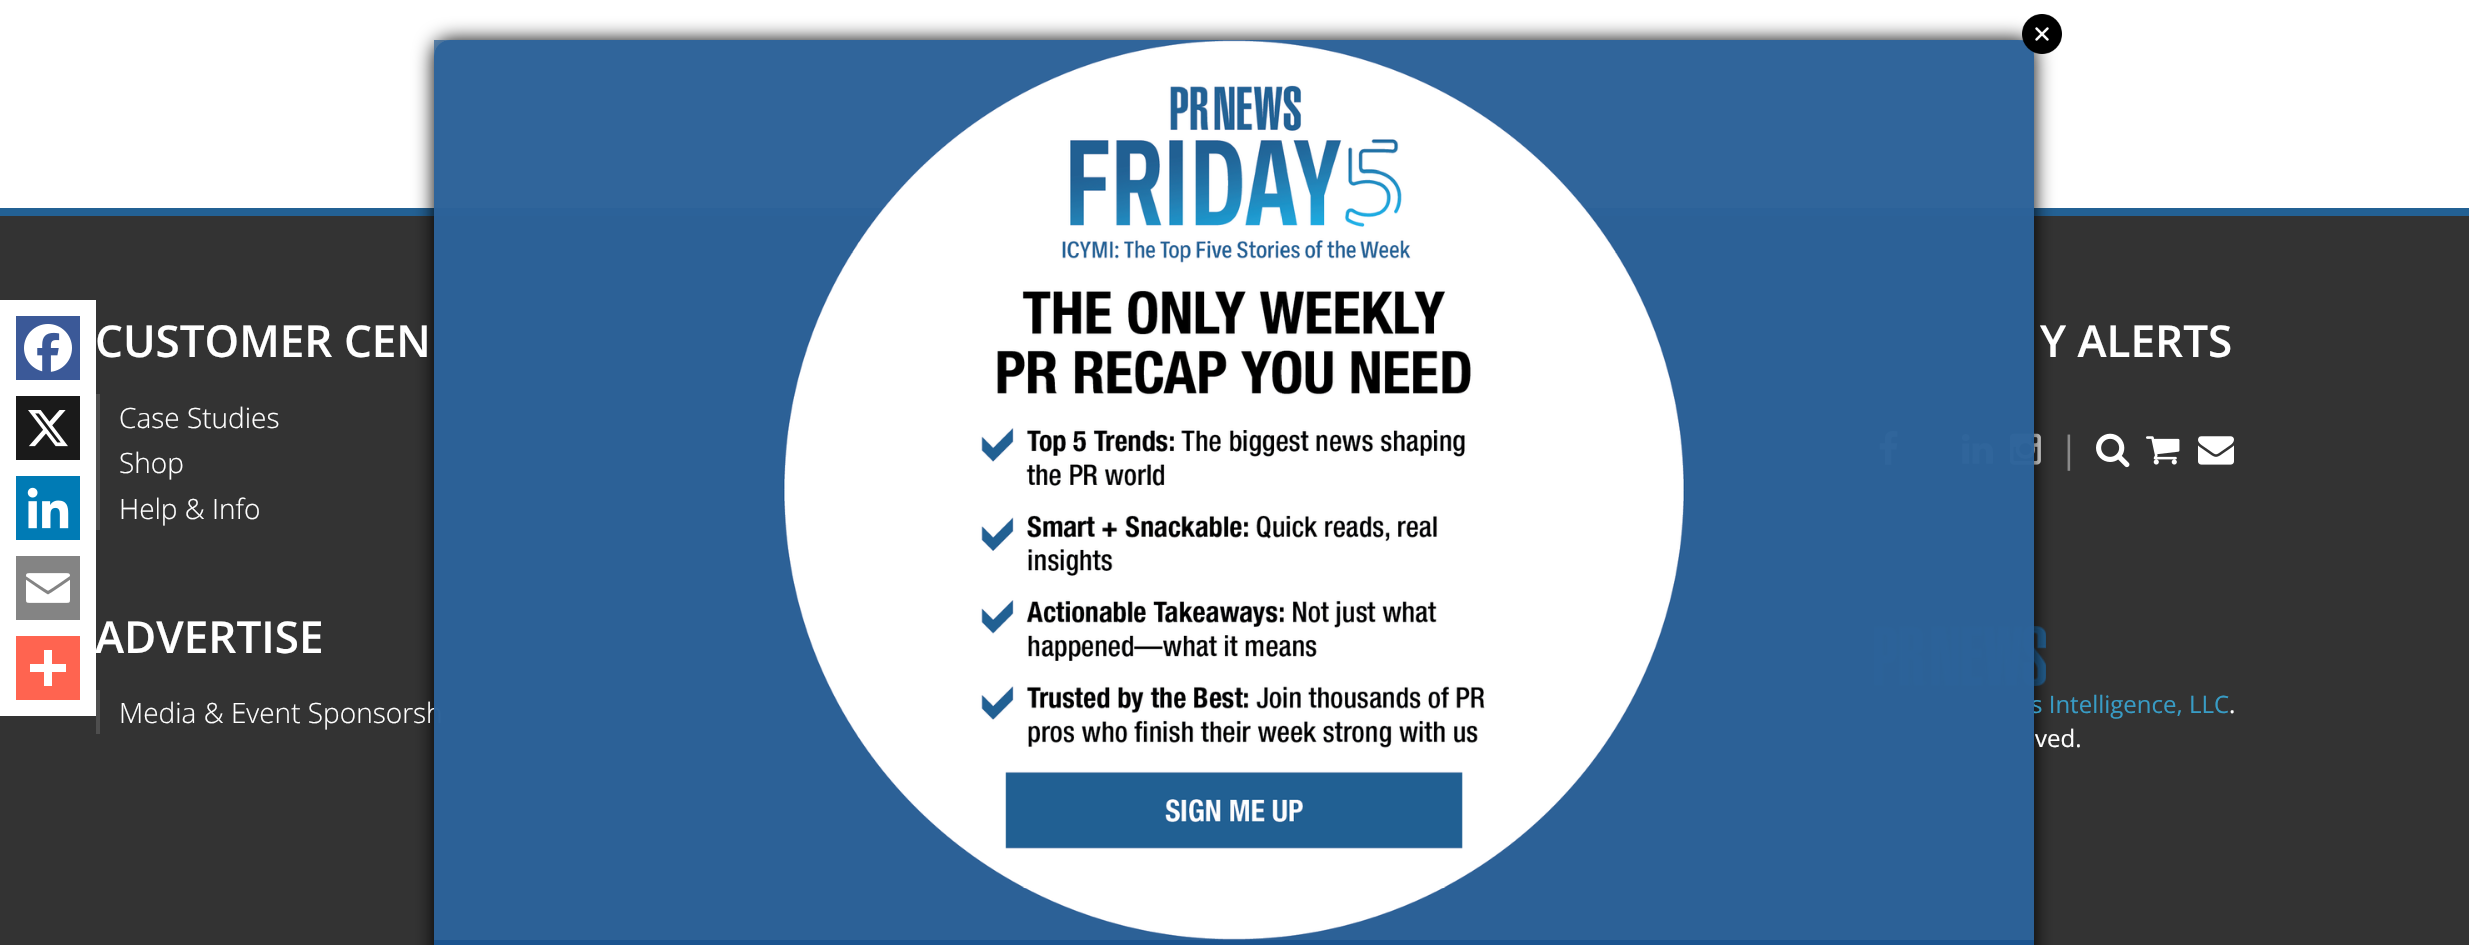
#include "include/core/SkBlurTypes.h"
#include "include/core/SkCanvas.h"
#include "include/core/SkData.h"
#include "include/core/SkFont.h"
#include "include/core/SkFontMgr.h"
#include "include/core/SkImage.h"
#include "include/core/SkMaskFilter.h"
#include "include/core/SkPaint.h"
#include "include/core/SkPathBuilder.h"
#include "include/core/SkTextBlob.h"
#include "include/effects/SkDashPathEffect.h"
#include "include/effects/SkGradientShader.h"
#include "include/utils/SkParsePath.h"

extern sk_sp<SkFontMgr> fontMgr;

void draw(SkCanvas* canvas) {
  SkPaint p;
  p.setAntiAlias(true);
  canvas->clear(SK_ColorWHITE);
  p.setColor(SkColorSetRGB(51, 51, 51));
  canvas->drawRect(SkRect::MakeLTRB(0, 216, 2469, 945), p);
  p.setColor(SK_ColorWHITE);
  canvas->drawRect(SkRect::MakeLTRB(0, 300, 96, 716), p);
  p.setColor(SkColorSetRGB(59, 89, 152));
  canvas->drawRect(SkRect::MakeLTRB(16, 316, 80, 380), p);
  canvas->drawImageRect(SkImages::DeferredFromEncodedData(SkData::MakeFromFileName("images/1.png")), SkRect::MakeLTRB(24, 324, 72, 372), SkSamplingOptions());
  p.setColor(SkColorSetRGB(26, 26, 26));
  canvas->drawRect(SkRect::MakeLTRB(16, 396, 80, 460), p);
  canvas->drawImageRect(SkImages::DeferredFromEncodedData(SkData::MakeFromFileName("images/2.png")), SkRect::MakeLTRB(28, 410, 68, 447), SkSamplingOptions());
  p.setColor(SkColorSetRGB(0, 123, 181));
  canvas->drawRect(SkRect::MakeLTRB(16, 476, 80, 540), p);
  canvas->drawImageRect(SkImages::DeferredFromEncodedData(SkData::MakeFromFileName("images/3.png")), SkRect::MakeLTRB(27, 487, 69, 529), SkSamplingOptions());
  p.setColor(SkColorSetRGB(132, 132, 132));
  canvas->drawRect(SkRect::MakeLTRB(16, 556, 80, 620), p);
  canvas->drawImageRect(SkImages::DeferredFromEncodedData(SkData::MakeFromFileName("images/4.png")), SkRect::MakeLTRB(26, 573, 70, 603), SkSamplingOptions());
  p.setColor(SkColorSetRGB(255, 100, 80));
  canvas->drawRect(SkRect::MakeLTRB(16, 636, 80, 700), p);
  p.setColor(SK_ColorWHITE);
  canvas->drawRect(SkRect::MakeLTRB(44, 650, 52, 686), p);
  canvas->drawRect(SkRect::MakeLTRB(30, 664, 66, 672), p);
  p.setColor(SkColorSetRGB(35, 97, 148));
  canvas->drawRect(SkRect::MakeLTRB(0, 208, 2469, 216), p);
  canvas->drawImageRect(SkImages::DeferredFromEncodedData(SkData::MakeFromFileName("images/7.png")), SkRect::MakeLTRB(1879, 431, 1898, 465), SkSamplingOptions());
  canvas->drawImageRect(SkImages::DeferredFromEncodedData(SkData::MakeFromFileName("images/8.png")), SkRect::MakeLTRB(1962, 434, 1993, 464), SkSamplingOptions());
  canvas->drawImageRect(SkImages::DeferredFromEncodedData(SkData::MakeFromFileName("images/9.png")), SkRect::MakeLTRB(2010, 433, 2041, 465), SkSamplingOptions());
  canvas->drawImageRect(SkImages::DeferredFromEncodedData(SkData::MakeFromFileName("images/13.png")), SkRect::MakeLTRB(1874, 626, 2046, 686), SkSamplingOptions());
  canvas->save();
  canvas->clipPath(SkPathBuilder(SkPathFillType::kEvenOdd).moveTo(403, 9).lineTo(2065, 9).lineTo(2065, 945).lineTo(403, 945).close().moveTo(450, 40).lineTo(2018, 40).cubicTo(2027, 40, 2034, 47, 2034, 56).lineTo(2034, 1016).cubicTo(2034, 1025, 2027, 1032, 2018, 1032).lineTo(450, 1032).cubicTo(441, 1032, 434, 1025, 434, 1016).lineTo(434, 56).cubicTo(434, 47, 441, 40, 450, 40).close().detach(), true);
  p.setColor(SK_ColorBLACK);
  p.setMaskFilter(SkMaskFilter::MakeBlur(kNormal_SkBlurStyle, 10));
  canvas->drawRoundRect(SkRect::MakeLTRB(434, 40, 2034, 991), 16, 16, p);
  p.setMaskFilter(nullptr);
  canvas->restore();
  p.setColor(SkColorSetRGB(78, 78, 78));
  canvas->drawRect(SkRect::MakeLTRB(96, 394, 100, 530), p);
  canvas->drawRect(SkRect::MakeLTRB(96, 690, 100, 734), p);
  canvas->drawImageRect(SkImages::DeferredFromEncodedData(SkData::MakeFromFileName("images/10.png")), SkRect::MakeLTRB(2096, 433, 2130, 468), SkSamplingOptions());
  canvas->drawImageRect(SkImages::DeferredFromEncodedData(SkData::MakeFromFileName("images/11.png")), SkRect::MakeLTRB(2146, 436, 2180, 465), SkSamplingOptions());
  canvas->drawImageRect(SkImages::DeferredFromEncodedData(SkData::MakeFromFileName("images/12.png")), SkRect::MakeLTRB(2198, 436, 2234, 465), SkSamplingOptions());
  SkFont font1(fontMgr->matchFamilyStyle("Open Sans", SkFontStyle(600, SkFontStyle::kNormal_Width, SkFontStyle::kUpright_Slant)), 44);
  font1.setSubpixel(true);
  p.setColor(SK_ColorWHITE);
  canvas->drawString("CUSTOMER CEN", 95, 357, font1, p);
  SkFont font2(fontMgr->matchFamilyStyle("Open Sans", SkFontStyle(300, SkFontStyle::kNormal_Width, SkFontStyle::kUpright_Slant)), 28);
  font2.setSubpixel(true);
  canvas->drawString("Case Studies", 119, 428, font2, p);
  canvas->drawString("Shop", 119, 473, font2, p);
  canvas->drawString("Help & Info", 119, 519, font2, p);
  canvas->drawString("ADVERTISE", 95, 653, font1, p);
  canvas->drawString("Media & Event Sponsorsh", 119, 723, font2, p);
  canvas->drawString("Y ALERTS", 2040, 357, font1, p);
  SkFont font3(fontMgr->matchFamilyStyle("Open Sans", SkFontStyle::Normal()), 36);
  font3.setSubpixel(true);
  p.setColor(SkColorSetRGB(138, 138, 138));
  canvas->drawString("|", 2059, 462, font3, p);
  SkFont font4(fontMgr->matchFamilyStyle("Open Sans", SkFontStyle::Normal()), 24);
  font4.setSubpixel(true);
  p.setColor(SkColorSetRGB(56, 156, 197));
  canvas->drawString("s Intelligence, LLC", 2031, 713, font4, p);
  p.setColor(SkColorSetARGB(235, 25, 87, 151));
  canvas->drawPath(SkPathBuilder().moveTo(450, 40).lineTo(2018, 40).cubicTo(2027, 40, 2034, 47, 2034, 56).lineTo(2034, 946).lineTo(434, 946).lineTo(434, 56).cubicTo(434, 47, 441, 40, 450, 40).close().detach(), p);
  canvas->drawImageRect(SkImages::DeferredFromEncodedData(SkData::MakeFromFileName("images/6.png")), SkRect::MakeLTRB(434, 40, 2034, 940), SkSamplingOptions());
  canvas->drawImageRect(SkImages::DeferredFromEncodedData(SkData::MakeFromFileName("images/5.png")), SkRect::MakeLTRB(2022, 14, 2062, 54), SkSamplingOptions());
  p.setColor(SK_ColorWHITE);
  canvas->drawString(".", 2229, 713, font4, p);
  canvas->drawString("ved.", 2035, 747, font4, p);
}
